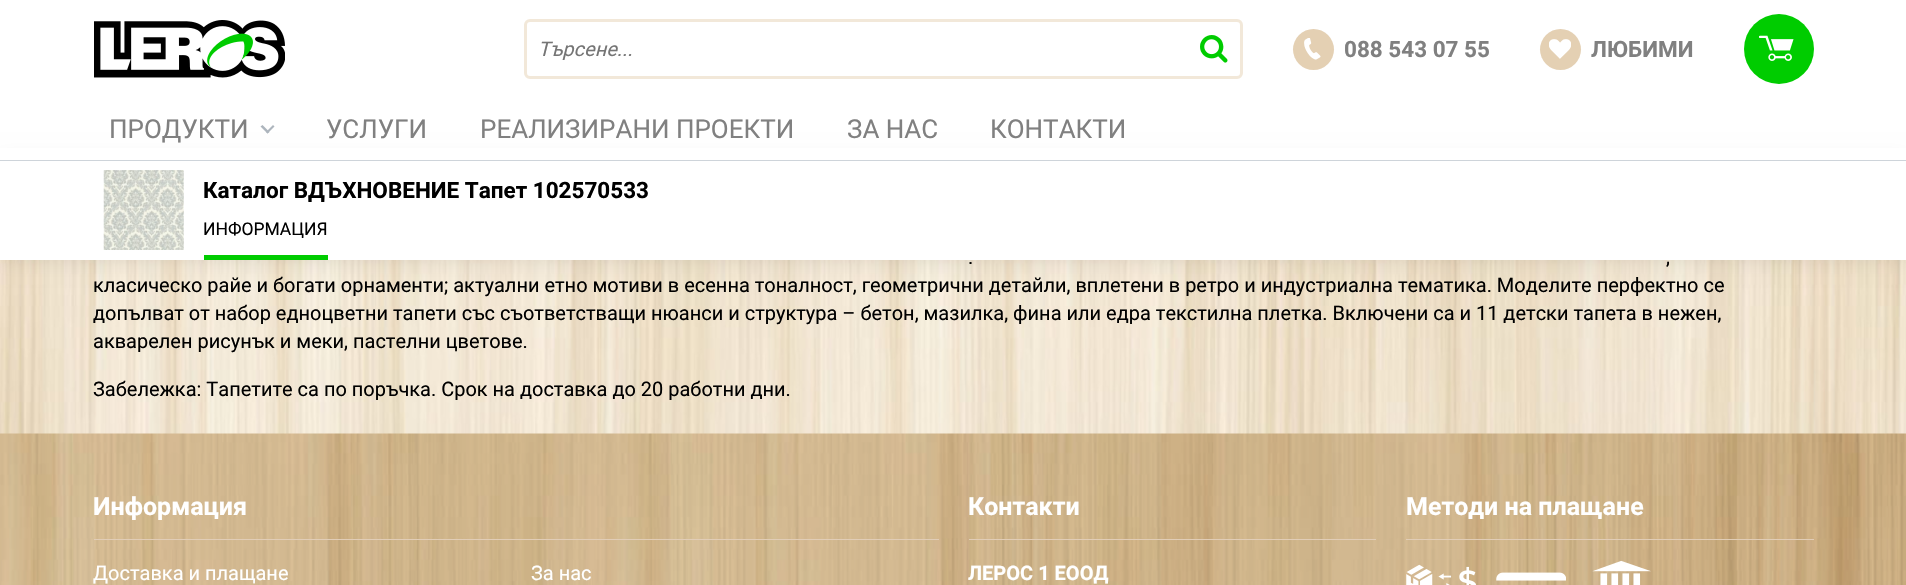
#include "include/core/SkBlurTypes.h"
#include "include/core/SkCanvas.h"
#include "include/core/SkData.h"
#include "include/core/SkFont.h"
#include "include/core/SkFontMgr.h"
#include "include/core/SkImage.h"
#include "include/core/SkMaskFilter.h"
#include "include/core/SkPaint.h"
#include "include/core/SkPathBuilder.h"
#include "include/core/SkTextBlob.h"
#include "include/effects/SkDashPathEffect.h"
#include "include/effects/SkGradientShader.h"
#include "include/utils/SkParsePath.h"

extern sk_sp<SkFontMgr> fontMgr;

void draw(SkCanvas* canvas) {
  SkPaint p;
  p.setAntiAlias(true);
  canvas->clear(SK_ColorWHITE);
  canvas->drawImageRect(SkImages::DeferredFromEncodedData(SkData::MakeFromFileName("images/1.png")), SkRect::MakeLTRB(0, 260, 1906, 434), SkSamplingOptions());
  p.setColor(SkColorSetARGB(26, 0, 0, 0));
  p.setMaskFilter(SkMaskFilter::MakeBlur(kNormal_SkBlurStyle, 9.5f));
  canvas->drawRect(SkRect::MakeLTRB(0, 160, 1906, 260), p);
  p.setMaskFilter(nullptr);
  p.setColor(SK_ColorWHITE);
  canvas->drawRect(SkRect::MakeLTRB(0, 148, 1906, 160), p);
  p.setColor(SkColorSetRGB(206, 212, 218));
  canvas->drawRect(SkRect::MakeLTRB(0, 160, 1906, 161), p);
  canvas->drawImageRect(SkImages::DeferredFromEncodedData(SkData::MakeFromFileName("images/2.png")), SkRect::MakeLTRB(94, 20, 285, 78), SkSamplingOptions());
  p.setStyle(SkPaint::kStroke_Style);
  p.setStrokeWidth(3);
  p.setColor(SkColorSetRGB(242, 232, 217));
  canvas->drawRoundRect(SkRect::MakeLTRB(525.5f, 20.5f, 1241.5f, 77.5f), 4.5f, 4.5f, p);
  canvas->drawImageRect(SkImages::DeferredFromEncodedData(SkData::MakeFromFileName("images/3.png")), SkRect::MakeLTRB(1200, 35, 1228, 63), SkSamplingOptions());
  p.setStyle(SkPaint::kFill_Style);
  p.setColor(SkColorSetRGB(228, 208, 179));
  canvas->drawCircle(1313.5f, 49.5f, 20.5f, p);
  canvas->drawImageRect(SkImages::DeferredFromEncodedData(SkData::MakeFromFileName("images/4.png")), SkRect::MakeLTRB(1304, 38, 1321, 60), SkSamplingOptions());
  canvas->drawCircle(1560.5f, 49.5f, 20.5f, p);
  canvas->drawImageRect(SkImages::DeferredFromEncodedData(SkData::MakeFromFileName("images/5.png")), SkRect::MakeLTRB(1549, 39, 1571, 59), SkSamplingOptions());
  p.setColor(SkColorSetRGB(0, 204, 0));
  canvas->drawCircle(1779, 49, 35, p);
  canvas->drawImageRect(SkImages::DeferredFromEncodedData(SkData::MakeFromFileName("images/6.png")), SkRect::MakeLTRB(1759, 35, 1794, 61), SkSamplingOptions());
  p.setColor(SkColorSetRGB(173, 181, 189));
  canvas->drawPath(SkPathBuilder().moveTo(273, 125).lineTo(274.5f, 126.5f).lineTo(267.5f, 133.5f).lineTo(266, 132).close().detach(), p);
  canvas->drawPath(SkPathBuilder().moveTo(262.5f, 125).lineTo(269.5f, 132).lineTo(267.5f, 133.5f).lineTo(260.5f, 126.5f).close().detach(), p);
  p.setColor(SK_ColorWHITE);
  canvas->drawRect(SkRect::MakeLTRB(0, 161, 1906, 260), p);
  canvas->drawImageRect(SkImages::DeferredFromEncodedData(SkData::MakeFromFileName("images/7.png")), SkRect::MakeLTRB(103, 170, 184, 250), SkSamplingOptions());
  p.setColor(SkColorSetRGB(0, 204, 0));
  canvas->drawRect(SkRect::MakeLTRB(204, 255, 328, 260), p);
  canvas->drawImageRect(SkImages::DeferredFromEncodedData(SkData::MakeFromFileName("images/8.png")), SkRect::MakeLTRB(0, 433, 1906, 585), SkSamplingOptions());
  p.setColor(SkColorSetRGB(225, 205, 183));
  canvas->drawRect(SkRect::MakeLTRB(94, 539, 939, 540), p);
  canvas->drawRect(SkRect::MakeLTRB(969, 539, 1376, 540), p);
  canvas->drawRect(SkRect::MakeLTRB(1406, 539, 1814, 540), p);
  canvas->drawImageRect(SkImages::DeferredFromEncodedData(SkData::MakeFromFileName("images/9.png")), SkRect::MakeLTRB(1406, 564, 1476, 585), SkSamplingOptions());
  canvas->drawImageRect(SkImages::DeferredFromEncodedData(SkData::MakeFromFileName("images/10.png")), SkRect::MakeLTRB(1496, 572, 1566, 581), SkSamplingOptions());
  canvas->drawImageRect(SkImages::DeferredFromEncodedData(SkData::MakeFromFileName("images/11.png")), SkRect::MakeLTRB(1592, 560, 1651, 585), SkSamplingOptions());
  SkFont font1(fontMgr->matchFamilyStyle("Roboto", SkFontStyle::Italic()), 20);
  font1.setSubpixel(true);
  p.setColor(SkColorSetRGB(117, 117, 117));
  canvas->drawString("Търсене...", 538, 56, font1, p);
  SkFont font2(fontMgr->matchFamilyStyle("Roboto", SkFontStyle::Bold()), 22.5f);
  font2.setSubpixel(true);
  p.setColor(SkColorSetRGB(128, 128, 128));
  canvas->drawString("088 543 07 55", 1344, 57, font2, p);
  canvas->drawString("ЛЮБИМИ", 1591, 57, font2, p);
  SkFont font3(fontMgr->matchFamilyStyle("Roboto", SkFontStyle::Normal()), 26);
  font3.setSubpixel(true);
  canvas->drawString("ПРОДУКТИ", 109, 138, font3, p);
  canvas->drawString("УСЛУГИ", 326, 138, font3, p);
  canvas->drawString("РЕАЛИЗИРАНИ ПРОЕКТИ", 480, 138, font3, p);
  canvas->drawString("ЗА НАС", 847, 138, font3, p);
  canvas->drawString("КОНТАКТИ", 990, 138, font3, p);
  p.setColor(SK_ColorBLACK);
  canvas->drawString("Каталог ВДЪХНОВЕНИЕ Тапет 102570533", 203, 198, font2, p);
  SkFont font4(fontMgr->matchFamilyStyle("Roboto", SkFontStyle::Normal()), 17.5f);
  font4.setSubpixel(true);
  canvas->drawString("ИНФОРМАЦИЯ", 203, 235, font4, p);
  SkFont font5(fontMgr->matchFamilyStyle("Roboto", SkFontStyle::Normal()), 20);
  font5.setSubpixel(true);
  canvas->drawString(".", 968, 264, font5, p);
  canvas->drawString(",", 1666, 264, font5, p);
  canvas->drawString("класическо райе и богати орнаменти; актуални етно мотиви в есенна тоналност, геометрични детайли, вплетени в ретро и индустриална тематика. Моделите перфектно се", 93, 292, font5, p);
  canvas->drawString("допълват от набор едноцветни тапети със съответстващи нюанси и структура – бетон, мазилка, фина или едра текстилна плетка. Включени са и 11 детски тапета в нежен,", 93, 320, font5, p);
  canvas->drawString("акварелен рисунък и меки, пастелни цветове.", 93, 348, font5, p);
  canvas->drawString("Забележка: Тапетите са по поръчка. Срок на доставка до 20 работни дни.", 93, 396, font5, p);
  SkFont font6(fontMgr->matchFamilyStyle("Roboto", SkFontStyle::Bold()), 25);
  font6.setSubpixel(true);
  p.setColor(SK_ColorWHITE);
  canvas->drawString("Информация", 93, 515, font6, p);
  canvas->drawString("Доставка и плащане", 93, 580, font5, p);
  canvas->drawString("За нас", 531, 580, font5, p);
  canvas->drawString("Контакти", 968, 515, font6, p);
  SkFont font7(fontMgr->matchFamilyStyle("Roboto", SkFontStyle::Bold()), 20);
  font7.setSubpixel(true);
  canvas->drawString("ЛЕРОС 1 ЕООД", 968, 580, font7, p);
  canvas->drawString("Методи на плащане", 1406, 515, font6, p);
}
